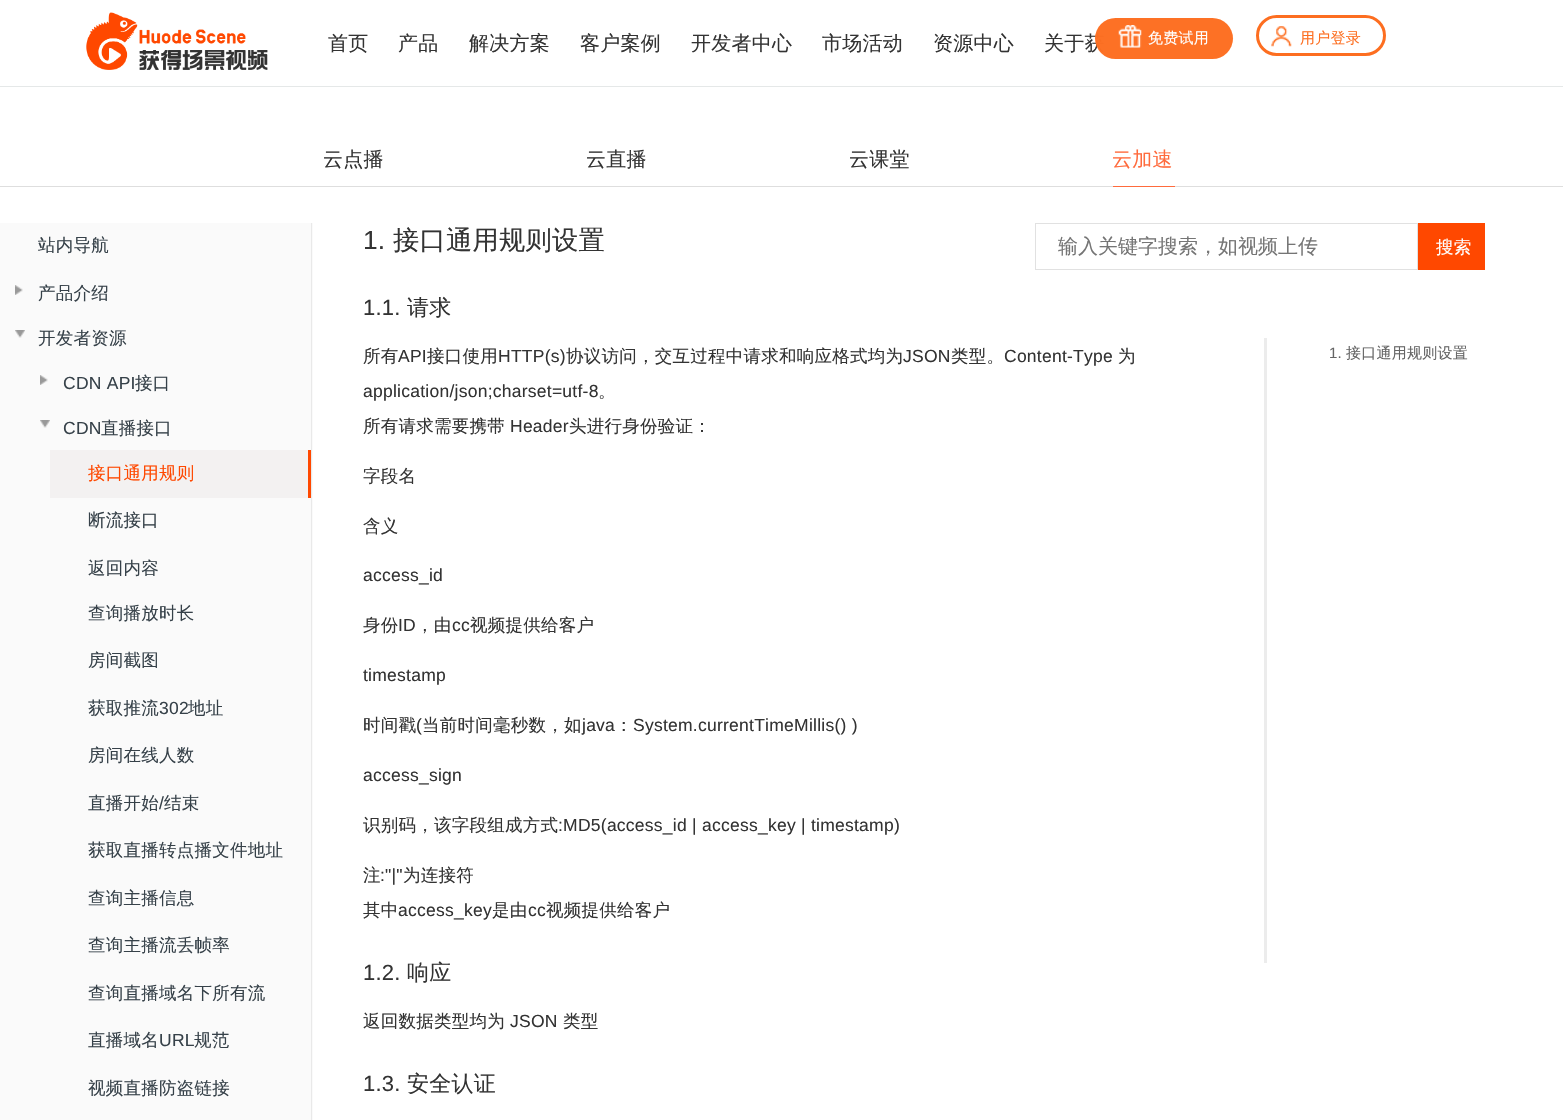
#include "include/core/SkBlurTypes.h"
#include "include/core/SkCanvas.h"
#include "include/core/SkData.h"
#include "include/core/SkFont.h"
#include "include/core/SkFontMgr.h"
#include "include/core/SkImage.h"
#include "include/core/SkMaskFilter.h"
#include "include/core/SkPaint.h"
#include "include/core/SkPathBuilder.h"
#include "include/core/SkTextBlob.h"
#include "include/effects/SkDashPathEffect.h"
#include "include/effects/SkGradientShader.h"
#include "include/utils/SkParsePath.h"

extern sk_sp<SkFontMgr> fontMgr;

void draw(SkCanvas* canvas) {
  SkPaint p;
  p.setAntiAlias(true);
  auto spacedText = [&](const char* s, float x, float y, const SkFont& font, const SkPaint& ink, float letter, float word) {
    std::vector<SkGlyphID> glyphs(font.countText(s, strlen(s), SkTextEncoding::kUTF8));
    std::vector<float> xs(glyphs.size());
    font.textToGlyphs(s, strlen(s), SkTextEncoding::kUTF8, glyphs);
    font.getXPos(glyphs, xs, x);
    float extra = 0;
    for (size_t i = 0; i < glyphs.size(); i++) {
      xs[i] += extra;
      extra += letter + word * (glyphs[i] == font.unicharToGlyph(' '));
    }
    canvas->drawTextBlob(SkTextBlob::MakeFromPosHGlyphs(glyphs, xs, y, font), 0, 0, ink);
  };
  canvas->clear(SK_ColorWHITE);
  p.setColor(SkColorSetRGB(229, 232, 232));
  canvas->drawRect(SkRect::MakeLTRB(0, 86, 1563, 87), p);
  canvas->drawImageRect(SkImages::DeferredFromEncodedData(SkData::MakeFromFileName("images/1.png")), SkRect::MakeLTRB(86, 12, 268, 70), SkSamplingOptions());
  p.setStyle(SkPaint::kStroke_Style);
  p.setStrokeWidth(3);
  p.setColor(SkColorSetRGB(253, 110, 32));
  canvas->drawRoundRect(SkRect::MakeLTRB(1257.5f, 16.5f, 1384.5f, 54.5f), 19, 19, p);
  canvas->drawImageRect(SkImages::DeferredFromEncodedData(SkData::MakeFromFileName("images/3.png")), SkRect::MakeLTRB(1271, 26, 1292, 47), SkSamplingOptions());
  p.setStyle(SkPaint::kFill_Style);
  p.setColor(SkColorSetRGB(222, 222, 222));
  canvas->drawRect(SkRect::MakeLTRB(0, 186, 1563, 187), p);
  p.setColor(SkColorSetRGB(255, 107, 61));
  canvas->drawRect(SkRect::MakeLTRB(1113, 186, 1175, 187), p);
  p.setColor(SkColorSetRGB(250, 250, 250));
  canvas->drawRect(SkRect::MakeLTRB(0, 223, 313, 1120), p);
  p.setColor(SkColorSetRGB(233, 233, 233));
  canvas->drawRect(SkRect::MakeLTRB(311, 223, 312, 1120), p);
  canvas->drawImageRect(SkImages::DeferredFromEncodedData(SkData::MakeFromFileName("images/4.png")), SkRect::MakeLTRB(15, 285, 23, 295), SkSamplingOptions());
  canvas->drawImageRect(SkImages::DeferredFromEncodedData(SkData::MakeFromFileName("images/5.png")), SkRect::MakeLTRB(15, 330, 25, 338), SkSamplingOptions());
  canvas->drawImageRect(SkImages::DeferredFromEncodedData(SkData::MakeFromFileName("images/4.png")), SkRect::MakeLTRB(40, 375, 48, 385), SkSamplingOptions());
  canvas->drawImageRect(SkImages::DeferredFromEncodedData(SkData::MakeFromFileName("images/5.png")), SkRect::MakeLTRB(40, 420, 50, 428), SkSamplingOptions());
  p.setColor(SkColorSetRGB(243, 241, 241));
  canvas->drawRect(SkRect::MakeLTRB(50, 450, 308, 498), p);
  p.setColor(SkColorSetRGB(255, 72, 0));
  canvas->drawRect(SkRect::MakeLTRB(308, 450, 311, 498), p);
  canvas->drawRect(SkRect::MakeLTRB(1418, 223, 1485, 270), p);
  p.setStyle(SkPaint::kStroke_Style);
  p.setStrokeWidth(1);
  p.setColor(SkColorSetRGB(225, 225, 225));
  canvas->drawRect(SkRect::MakeLTRB(1035.5f, 223.5f, 1417.5f, 269.5f), p);
  p.setStyle(SkPaint::kFill_Style);
  p.setColor(SkColorSetRGB(236, 236, 236));
  canvas->drawRect(SkRect::MakeLTRB(1264, 338, 1267, 963), p);
  SkFont font1(fontMgr->matchFamilyStyle("WenQuanYi Zen Hei", SkFontStyle(500, SkFontStyle::kNormal_Width, SkFontStyle::kUpright_Slant)), 20);
  font1.setSubpixel(true);
  p.setColor(SkColorSetRGB(51, 51, 51));
  spacedText("首页", 328, 50, font1, p, 0.25f, 0);
  spacedText("产品", 398, 50, font1, p, 0.25f, 0);
  spacedText("解决方案", 469, 50, font1, p, 0.25f, 0);
  spacedText("客户案例", 580, 50, font1, p, 0.25f, 0);
  spacedText("开发者中心", 691, 50, font1, p, 0.25f, 0);
  spacedText("市场活动", 822, 50, font1, p, 0.25f, 0);
  spacedText("资源中心", 933, 50, font1, p, 0.25f, 0);
  spacedText("关于获", 1044, 50, font1, p, 0.25f, 0);
  p.setColor(SkColorSetARGB(250, 253, 110, 33));
  canvas->drawRoundRect(SkRect::MakeLTRB(1095, 18, 1233, 59), 20.5f, 20.5f, p);
  canvas->drawImageRect(SkImages::DeferredFromEncodedData(SkData::MakeFromFileName("images/2.png")), SkRect::MakeLTRB(1118, 25, 1142, 48), SkSamplingOptions());
  SkFont font2(fontMgr->matchFamilyStyle("WenQuanYi Zen Hei", SkFontStyle(500, SkFontStyle::kNormal_Width, SkFontStyle::kUpright_Slant)), 15);
  font2.setSubpixel(true);
  p.setColor(SK_ColorWHITE);
  spacedText("免费试用", 1148, 43, font2, p, 0.25f, 0);
  p.setColor(SkColorSetRGB(253, 110, 32));
  spacedText("用户登录", 1300, 43, font2, p, 0.25f, 0);
  p.setColor(SkColorSetRGB(51, 51, 51));
  spacedText("云点播", 323, 166, font1, p, 0.25f, 0);
  spacedText("云直播", 586, 166, font1, p, 0.25f, 0);
  spacedText("云课堂", 849, 166, font1, p, 0.25f, 0);
  p.setColor(SkColorSetRGB(255, 107, 61));
  spacedText("云加速", 1112, 166, font1, p, 0.25f, 0);
  SkFont font3(fontMgr->matchFamilyStyle("WenQuanYi Zen Hei", SkFontStyle(500, SkFontStyle::kNormal_Width, SkFontStyle::kUpright_Slant)), 17.5f);
  font3.setSubpixel(true);
  p.setColor(SkColorSetRGB(54, 65, 73));
  spacedText("站内导航", 38, 251, font3, p, 0.25f, 0);
  spacedText("产品介绍", 38, 299, font3, p, 0.25f, 0);
  spacedText("开发者资源", 38, 344, font3, p, 0.25f, 0);
  SkFont font4(fontMgr->matchFamilyStyle("Liberation Sans", SkFontStyle::Normal()), 17.5f);
  font4.setSubpixel(true);
  spacedText("CDN API", 63, 389, font4, p, 0.25f, 0);
  spacedText("接口", 135, 389, font3, p, 0.25f, 0);
  spacedText("CDN", 63, 434, font4, p, 0.25f, 0);
  spacedText("直播接口", 101, 434, font3, p, 0.25f, 0);
  p.setColor(SkColorSetRGB(255, 72, 0));
  spacedText("接口通用规则", 88, 479, font3, p, 0.25f, 0);
  p.setColor(SkColorSetRGB(54, 65, 73));
  spacedText("断流接口", 88, 526, font3, p, 0.25f, 0);
  spacedText("返回内容", 88, 574, font3, p, 0.25f, 0);
  spacedText("查询播放时长", 88, 619, font3, p, 0.25f, 0);
  spacedText("房间截图", 88, 666, font3, p, 0.25f, 0);
  spacedText("获取推流", 88, 714, font3, p, 0.25f, 0);
  spacedText("302", 159, 714, font4, p, 0.25f, 0);
  spacedText("地址", 188, 714, font3, p, 0.25f, 0);
  spacedText("房间在线人数", 88, 761, font3, p, 0.25f, 0);
  spacedText("直播开始", 88, 809, font3, p, 0.25f, 0);
  spacedText("/", 159, 809, font4, p, 0.25f, 0);
  spacedText("结束", 164, 809, font3, p, 0.25f, 0);
  spacedText("获取直播转点播文件地址", 88, 856, font3, p, 0.25f, 0);
  spacedText("查询主播信息", 88, 904, font3, p, 0.25f, 0);
  spacedText("查询主播流丢帧率", 88, 951, font3, p, 0.25f, 0);
  spacedText("查询直播域名下所有流", 88, 999, font3, p, 0.25f, 0);
  spacedText("直播域名", 88, 1046, font3, p, 0.25f, 0);
  spacedText("URL", 159, 1046, font4, p, 0.25f, 0);
  spacedText("规范", 194, 1046, font3, p, 0.25f, 0);
  spacedText("视频直播防盗链接", 88, 1094, font3, p, 0.25f, 0);
  SkFont font5(fontMgr->matchFamilyStyle("Liberation Sans", SkFontStyle::Normal()), 26.25f);
  font5.setSubpixel(true);
  p.setColor(SkColorSetRGB(51, 51, 51));
  spacedText("1.", 363, 249, font5, p, 0.25f, 0);
  SkFont font6(fontMgr->matchFamilyStyle("WenQuanYi Zen Hei", SkFontStyle(500, SkFontStyle::kNormal_Width, SkFontStyle::kUpright_Slant)), 26.25f);
  font6.setSubpixel(true);
  spacedText("接口通用规则设置", 393, 249, font6, p, 0.25f, 0);
  SkFont font7(fontMgr->matchFamilyStyle("Liberation Sans", SkFontStyle::Normal()), 22);
  font7.setSubpixel(true);
  spacedText("1.1.", 363, 315, font7, p, 0.25f, 0);
  SkFont font8(fontMgr->matchFamilyStyle("WenQuanYi Zen Hei", SkFontStyle(500, SkFontStyle::kNormal_Width, SkFontStyle::kUpright_Slant)), 22);
  font8.setSubpixel(true);
  spacedText("请求", 407, 315, font8, p, 0.25f, 0);
  spacedText("所有", 363, 362, font3, p, 0.25f, 0);
  spacedText("API", 398, 362, font4, p, 0.25f, 0);
  spacedText("接口使用", 427, 362, font3, p, 0.25f, 0);
  spacedText("HTTP(s)", 498, 362, font4, p, 0.25f, 0);
  spacedText("协议访问，交互过程中请求和响应格式均为", 566, 362, font3, p, 0.25f, 0);
  spacedText("JSON", 903, 362, font4, p, 0.25f, 0);
  spacedText("类型。", 951, 362, font3, p, 0.25f, 0);
  spacedText("Content-Type", 1004, 362, font4, p, 0.25f, 0);
  spacedText("为", 1118, 362, font3, p, 0.25f, 0);
  spacedText("application/json;charset=utf-8", 363, 397, font4, p, 0.25f, 0);
  spacedText("。", 598, 397, font3, p, 0.25f, 0);
  spacedText("所有请求需要携带", 363, 432, font3, p, 0.25f, 0);
  spacedText("Header", 510, 432, font4, p, 0.25f, 0);
  spacedText("头进行身份验证：", 569, 432, font3, p, 0.25f, 0);
  spacedText("字段名", 363, 482, font3, p, 0.25f, 0);
  spacedText("含义", 363, 532, font3, p, 0.25f, 0);
  spacedText("access_id", 363, 581, font4, p, 0.25f, 0);
  spacedText("身份", 363, 631, font3, p, 0.25f, 0);
  spacedText("ID", 398, 631, font4, p, 0.25f, 0);
  spacedText("，由", 416, 631, font3, p, 0.25f, 0);
  spacedText("cc", 452, 631, font4, p, 0.25f, 0);
  spacedText("视频提供给客户", 470, 631, font3, p, 0.25f, 0);
  spacedText("timestamp", 363, 681, font4, p, 0.25f, 0);
  spacedText("时间戳", 363, 731, font3, p, 0.25f, 0);
  spacedText("(", 416, 731, font4, p, 0.25f, 0);
  spacedText("当前时间毫秒数，如", 422, 731, font3, p, 0.25f, 0);
  spacedText("java", 582, 731, font4, p, 0.25f, 0);
  spacedText("：", 615, 731, font3, p, 0.25f, 0);
  spacedText("System.currentTimeMillis() )", 633, 731, font4, p, 0.25f, 0);
  spacedText("access_sign", 363, 781, font4, p, 0.25f, 0);
  spacedText("识别码，该字段组成方式", 363, 831, font3, p, 0.25f, 0);
  spacedText(":MD5(access_id | access_key | timestamp)", 558, 831, font4, p, 0.25f, 0);
  spacedText("注", 363, 881, font3, p, 0.25f, 0);
  spacedText(":\"|\"", 380, 881, font4, p, 0.25f, 0);
  spacedText("为连接符", 403, 881, font3, p, 0.25f, 0);
  spacedText("其中", 363, 916, font3, p, 0.25f, 0);
  spacedText("access_key", 398, 916, font4, p, 0.25f, 0);
  spacedText("是由", 492, 916, font3, p, 0.25f, 0);
  spacedText("cc", 528, 916, font4, p, 0.25f, 0);
  spacedText("视频提供给客户", 546, 916, font3, p, 0.25f, 0);
  spacedText("1.2.", 363, 980, font7, p, 0.25f, 0);
  spacedText("响应", 407, 980, font8, p, 0.25f, 0);
  spacedText("返回数据类型均为", 363, 1027, font3, p, 0.25f, 0);
  spacedText("JSON", 510, 1027, font4, p, 0.25f, 0);
  spacedText("类型", 563, 1027, font3, p, 0.25f, 0);
  spacedText("1.3.", 363, 1091, font7, p, 0.25f, 0);
  spacedText("安全认证", 407, 1091, font8, p, 0.25f, 0);
  p.setColor(SkColorSetRGB(117, 117, 117));
  canvas->drawString("输入关键字搜索，如视频上传", 1058, 253, font1, p);
  p.setColor(SK_ColorWHITE);
  spacedText("搜索", 1436, 253, font3, p, 0.25f, 0);
  SkFont font9(fontMgr->matchFamilyStyle("Liberation Sans", SkFontStyle::Normal()), 15);
  font9.setSubpixel(true);
  p.setColor(SkColorSetRGB(101, 101, 101));
  spacedText("1.", 1329, 358, font9, p, 0.25f, 0);
  spacedText("接口通用规则设置", 1346, 358, font2, p, 0.25f, 0);
}
